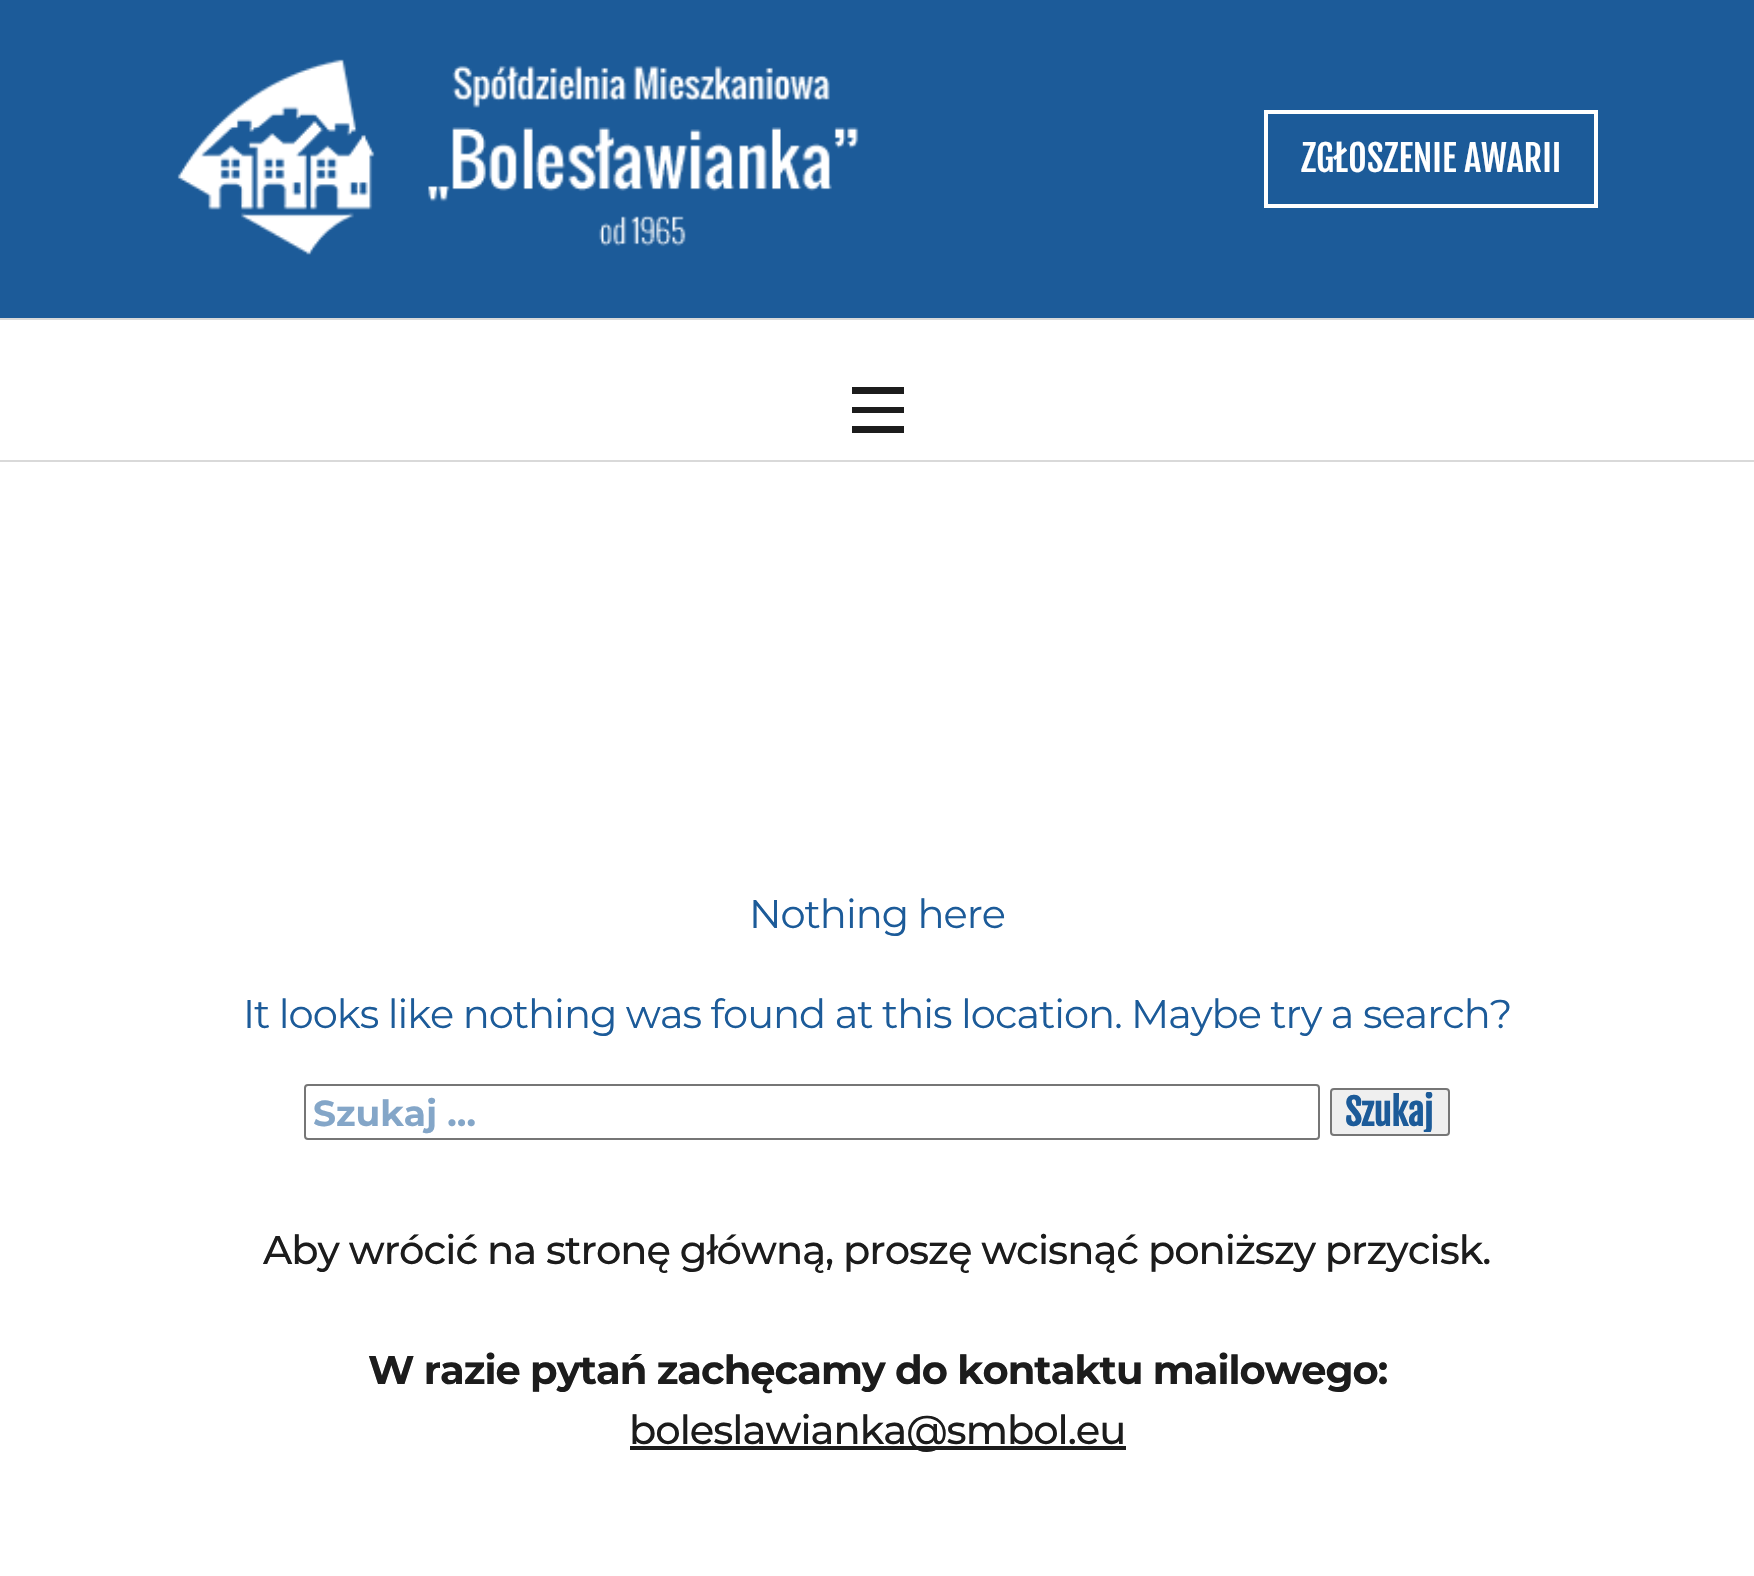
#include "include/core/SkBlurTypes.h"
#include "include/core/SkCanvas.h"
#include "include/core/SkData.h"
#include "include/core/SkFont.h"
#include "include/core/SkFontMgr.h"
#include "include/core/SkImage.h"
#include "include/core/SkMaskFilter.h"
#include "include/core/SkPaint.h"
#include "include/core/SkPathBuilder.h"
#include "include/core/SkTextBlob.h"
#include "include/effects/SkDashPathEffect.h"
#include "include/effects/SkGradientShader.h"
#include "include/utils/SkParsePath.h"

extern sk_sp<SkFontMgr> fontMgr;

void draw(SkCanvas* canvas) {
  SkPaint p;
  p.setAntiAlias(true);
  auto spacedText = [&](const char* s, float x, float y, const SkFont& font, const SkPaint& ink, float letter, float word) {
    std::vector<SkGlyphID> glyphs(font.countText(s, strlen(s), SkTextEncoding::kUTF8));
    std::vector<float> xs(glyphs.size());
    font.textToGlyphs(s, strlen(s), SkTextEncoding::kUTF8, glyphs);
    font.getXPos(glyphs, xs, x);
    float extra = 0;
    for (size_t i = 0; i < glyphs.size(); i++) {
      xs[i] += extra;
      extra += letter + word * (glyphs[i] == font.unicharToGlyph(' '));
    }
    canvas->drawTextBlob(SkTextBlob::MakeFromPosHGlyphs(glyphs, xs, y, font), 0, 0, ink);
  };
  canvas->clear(SK_ColorWHITE);
  p.setColor(SkColorSetRGB(28, 91, 153));
  canvas->drawRect(SkRect::MakeLTRB(0, 0, 1754, 318), p);
  canvas->drawImageRect(SkImages::DeferredFromEncodedData(SkData::MakeFromFileName("images/1.png")), SkRect::MakeLTRB(177, 59, 859, 255), SkSamplingOptions());
  p.setStyle(SkPaint::kStroke_Style);
  p.setStrokeWidth(4);
  p.setColor(SK_ColorWHITE);
  canvas->drawRect(SkRect::MakeLTRB(1266, 112, 1596, 206), p);
  p.setStyle(SkPaint::kFill_Style);
  p.setColor(SkColorSetRGB(217, 217, 217));
  canvas->drawRect(SkRect::MakeLTRB(0, 318, 1754, 320), p);
  canvas->drawRect(SkRect::MakeLTRB(0, 460, 1754, 462), p);
  p.setColor(SkColorSetRGB(28, 28, 28));
  canvas->drawRect(SkRect::MakeLTRB(852, 387, 904, 394), p);
  canvas->drawRect(SkRect::MakeLTRB(852, 407, 904, 413), p);
  canvas->drawRect(SkRect::MakeLTRB(852, 426, 904, 433), p);
  p.setStyle(SkPaint::kStroke_Style);
  p.setStrokeWidth(2);
  p.setColor(SkColorSetRGB(118, 118, 118));
  canvas->drawRoundRect(SkRect::MakeLTRB(305, 1085, 1319, 1139), 3, 3, p);
  p.setStyle(SkPaint::kFill_Style);
  p.setColor(SkColorSetRGB(239, 239, 239));
  canvas->drawRoundRect(SkRect::MakeLTRB(1331, 1089, 1449, 1135), 3, 3, p);
  p.setStyle(SkPaint::kStroke_Style);
  p.setColor(SkColorSetRGB(118, 118, 118));
  canvas->drawRoundRect(SkRect::MakeLTRB(1331, 1089, 1449, 1135), 3, 3, p);
  p.setStyle(SkPaint::kFill_Style);
  p.setColor(SkColorSetRGB(28, 28, 28));
  canvas->drawRect(SkRect::MakeLTRB(630, 1446, 1126, 1450), p);
  SkFont font1(fontMgr->matchFamilyStyle("Fjalla One", SkFontStyle::Normal()), 36);
  font1.setSubpixel(true);
  p.setColor(SK_ColorWHITE);
  canvas->drawString("ZGŁOSZENIE AWARII", 1301, 172, font1, p);
  SkFont font2(fontMgr->matchFamilyStyle("Montserrat", SkFontStyle::Normal()), 40);
  font2.setSubpixel(true);
  p.setColor(SkColorSetRGB(28, 91, 153));
  spacedText("Nothing here", 749, 928, font2, p, -1, 0);
  spacedText("It looks like nothing was found at this location. Maybe try a search?", 243, 1028, font2, p, -1, 0);
  SkFont font3(fontMgr->matchFamilyStyle("Montserrat", SkFontStyle::Bold()), 36);
  font3.setSubpixel(true);
  p.setColor(SkColorSetRGB(132, 166, 200));
  canvas->drawString("Szukaj …", 313, 1126, font3, p);
  canvas->save();
  canvas->clipRect(SkRect::MakeLTRB(1334, 1092, 1446, 1132));
  SkFont font4(fontMgr->matchFamilyStyle("Fjalla One", SkFontStyle::Bold()), 36);
  font4.setSubpixel(true);
  p.setColor(SkColorSetRGB(28, 91, 153));
  canvas->drawString("Szukaj", 1345, 1126, font4, p);
  canvas->restore();
  SkFont font5(fontMgr->matchFamilyStyle("Montserrat", SkFontStyle(500, SkFontStyle::kNormal_Width, SkFontStyle::kUpright_Slant)), 40);
  font5.setSubpixel(true);
  p.setColor(SkColorSetRGB(28, 28, 28));
  spacedText("Aby wrócić na stronę główną, proszę wcisnąć poniższy przycisk.", 263, 1264, font5, p, -1, 0);
  SkFont font6(fontMgr->matchFamilyStyle("Montserrat", SkFontStyle::Bold()), 40);
  font6.setSubpixel(true);
  spacedText("W razie pytań zachęcamy do kontaktu mailowego:", 368, 1384, font6, p, -1, 0);
  spacedText("boleslawianka@smbol.eu", 629, 1444, font5, p, -1, 0);
}
